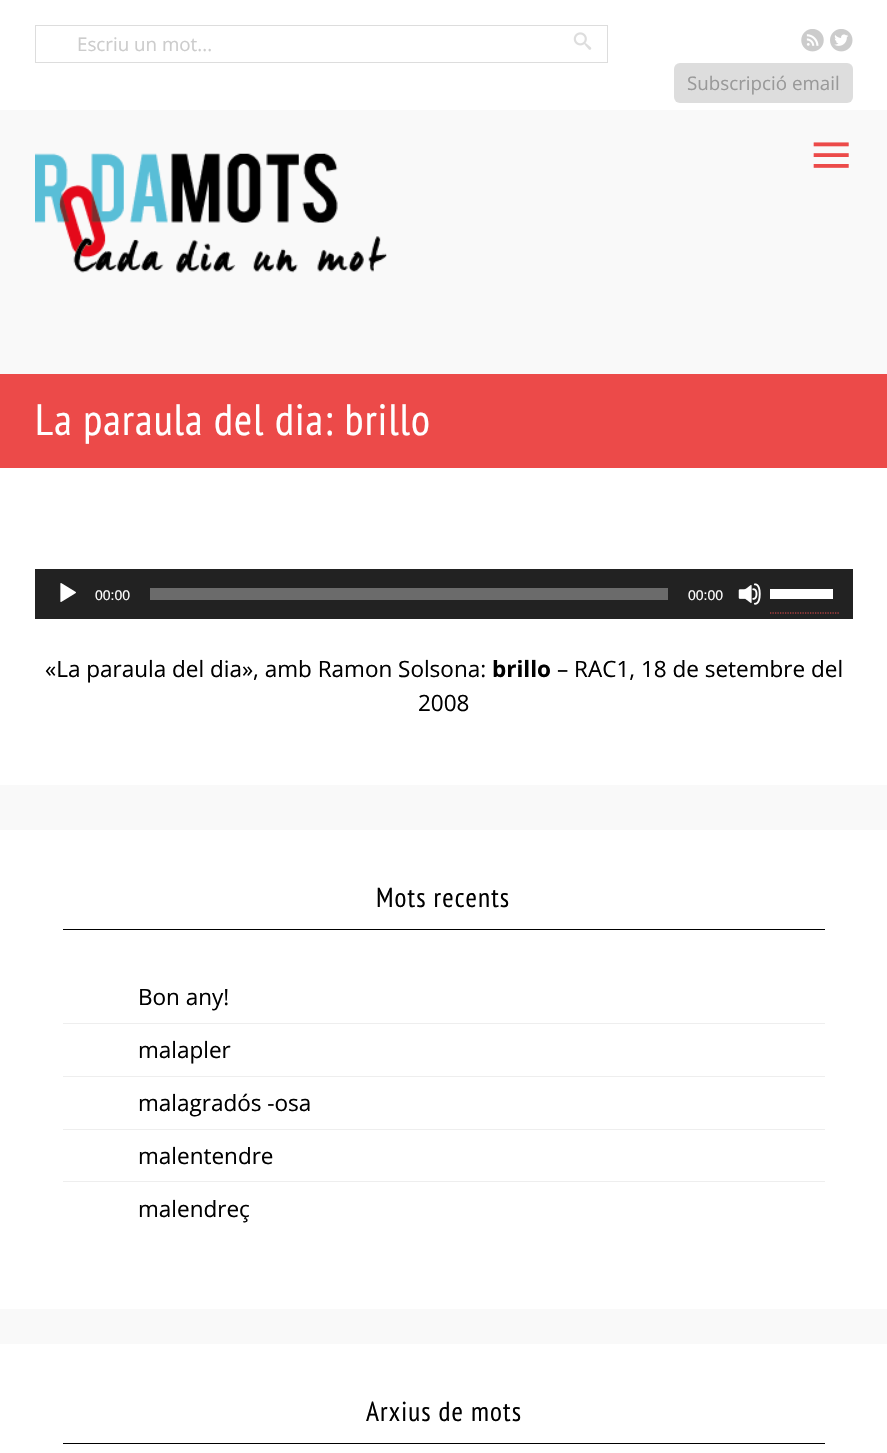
#include "include/core/SkBlurTypes.h"
#include "include/core/SkCanvas.h"
#include "include/core/SkData.h"
#include "include/core/SkFont.h"
#include "include/core/SkFontMgr.h"
#include "include/core/SkImage.h"
#include "include/core/SkMaskFilter.h"
#include "include/core/SkPaint.h"
#include "include/core/SkPathBuilder.h"
#include "include/core/SkTextBlob.h"
#include "include/effects/SkDashPathEffect.h"
#include "include/effects/SkGradientShader.h"
#include "include/utils/SkParsePath.h"

extern sk_sp<SkFontMgr> fontMgr;

void draw(SkCanvas* canvas) {
  SkPaint p;
  p.setAntiAlias(true);
  auto spacedText = [&](const char* s, float x, float y, const SkFont& font, const SkPaint& ink, float letter, float word) {
    std::vector<SkGlyphID> glyphs(font.countText(s, strlen(s), SkTextEncoding::kUTF8));
    std::vector<float> xs(glyphs.size());
    font.textToGlyphs(s, strlen(s), SkTextEncoding::kUTF8, glyphs);
    font.getXPos(glyphs, xs, x);
    float extra = 0;
    for (size_t i = 0; i < glyphs.size(); i++) {
      xs[i] += extra;
      extra += letter + word * (glyphs[i] == font.unicharToGlyph(' '));
    }
    canvas->drawTextBlob(SkTextBlob::MakeFromPosHGlyphs(glyphs, xs, y, font), 0, 0, ink);
  };
  canvas->clear(SkColorSetRGB(249, 249, 249));
  p.setColor(SK_ColorWHITE);
  canvas->drawRect(SkRect::MakeLTRB(0, 0, 887, 110), p);
  p.setStyle(SkPaint::kStroke_Style);
  p.setStrokeWidth(1);
  p.setColor(SkColorSetRGB(221, 221, 221));
  canvas->drawRect(SkRect::MakeLTRB(35.5f, 25.5f, 607.5f, 62.5f), p);
  canvas->drawImageRect(SkImages::DeferredFromEncodedData(SkData::MakeFromFileName("images/1.png")), SkRect::MakeLTRB(573, 32, 592, 50), SkSamplingOptions());
  canvas->drawImageRect(SkImages::DeferredFromEncodedData(SkData::MakeFromFileName("images/2.png")), SkRect::MakeLTRB(801, 29, 824, 52), SkSamplingOptions());
  canvas->drawImageRect(SkImages::DeferredFromEncodedData(SkData::MakeFromFileName("images/3.png")), SkRect::MakeLTRB(830, 29, 853, 52), SkSamplingOptions());
  p.setStyle(SkPaint::kFill_Style);
  canvas->drawRoundRect(SkRect::MakeLTRB(674, 63, 853, 103), 6, 6, p);
  canvas->drawImageRect(SkImages::DeferredFromEncodedData(SkData::MakeFromFileName("images/4.png")), SkRect::MakeLTRB(35, 153, 387, 273), SkSamplingOptions());
  p.setColor(SK_ColorWHITE);
  canvas->drawRect(SkRect::MakeLTRB(0, 468, 887, 785), p);
  p.setColor(SkColorSetRGB(236, 74, 73));
  canvas->drawRect(SkRect::MakeLTRB(0, 374, 887, 468), p);
  p.setColor(SkColorSetRGB(34, 34, 34));
  canvas->drawRect(SkRect::MakeLTRB(35, 569, 853, 619), p);
  canvas->drawImageRect(SkImages::DeferredFromEncodedData(SkData::MakeFromFileName("images/5.png")), SkRect::MakeLTRB(60, 583, 76, 602), SkSamplingOptions());
  p.setColor(SkColorSetRGB(107, 107, 107));
  canvas->drawRect(SkRect::MakeLTRB(150, 588, 668, 600), p);
  canvas->drawImageRect(SkImages::DeferredFromEncodedData(SkData::MakeFromFileName("images/6.png")), SkRect::MakeLTRB(738, 583, 761, 605), SkSamplingOptions());
  p.setStyle(SkPaint::kStroke_Style);
  p.setStrokeWidth(1.2f);
  p.setColor(SkColorSetRGB(236, 74, 73));
  p.setPathEffect(SkDashPathEffect::Make({{1.25f, 1.25f}}, 0));
  canvas->drawPath(SkPathBuilder().moveTo(770, 613).lineTo(840, 613).detach(), p);
  p.setPathEffect(nullptr);
  p.setStyle(SkPaint::kFill_Style);
  p.setColor(SK_ColorWHITE);
  canvas->drawRect(SkRect::MakeLTRB(770, 589, 833, 599), p);
  canvas->drawRect(SkRect::MakeLTRB(0, 830, 887, 1309), p);
  p.setColor(SK_ColorBLACK);
  canvas->drawRect(SkRect::MakeLTRB(63, 929, 825, 930), p);
  p.setColor(SkColorSetRGB(238, 238, 238));
  canvas->drawRect(SkRect::MakeLTRB(63, 1023, 825, 1024), p);
  canvas->drawRect(SkRect::MakeLTRB(63, 1076, 825, 1077), p);
  canvas->drawRect(SkRect::MakeLTRB(63, 1129, 825, 1130), p);
  canvas->drawRect(SkRect::MakeLTRB(63, 1181, 825, 1182), p);
  p.setColor(SK_ColorWHITE);
  canvas->drawRect(SkRect::MakeLTRB(0, 1344, 887, 1453), p);
  p.setColor(SK_ColorBLACK);
  canvas->drawRect(SkRect::MakeLTRB(63, 1443, 825, 1444), p);
  SkFont font1(fontMgr->matchFamilyStyle("Open Sans", SkFontStyle::Normal()), 18.75f);
  font1.setSubpixel(true);
  p.setColor(SkColorSetRGB(204, 204, 204));
  canvas->drawString("Escriu un mot...", 77, 51, font1, p);
  p.setColor(SkColorSetRGB(153, 153, 153));
  canvas->drawString("Subscripció email", 687, 90, font1, p);
  SkFont font2(fontMgr->matchFamilyStyle("Liberation Serif", SkFontStyle::Normal()), 75);
  font2.setSubpixel(true);
  p.setColor(SkColorSetRGB(236, 74, 73));
  canvas->drawString("≡", 810, 180, font2, p);
  SkFont font3(fontMgr->matchFamilyStyle("PT Sans Narrow", SkFontStyle::Normal()), 43.75f);
  font3.setSubpixel(true);
  p.setColor(SK_ColorWHITE);
  spacedText("La paraula del dia: brillo", 35, 435, font3, p, 1.1f, 0);
  SkFont font4(fontMgr->matchFamilyStyle("Liberation Sans", SkFontStyle::Normal()), 14);
  font4.setSubpixel(true);
  canvas->drawString("00:00", 95, 600, font4, p);
  canvas->drawString("00:00", 688, 600, font4, p);
  SkFont font5(fontMgr->matchFamilyStyle("Open Sans", SkFontStyle::Normal()), 22.5f);
  font5.setSubpixel(true);
  p.setColor(SK_ColorBLACK);
  canvas->drawString("«La paraula del dia», amb Ramon Solsona:", 45, 677, font5, p);
  SkFont font6(fontMgr->matchFamilyStyle("Open Sans", SkFontStyle::Bold()), 22.5f);
  font6.setSubpixel(true);
  canvas->drawString("brillo", 492, 677, font6, p);
  canvas->drawString("– RAC1, 18 de setembre del", 557, 677, font5, p);
  canvas->drawString("2008", 418, 711, font5, p);
  SkFont font7(fontMgr->matchFamilyStyle("PT Sans Narrow", SkFontStyle::Normal()), 27.5f);
  font7.setSubpixel(true);
  spacedText("Mots recents", 376, 907, font7, p, 1.1f, 0);
  canvas->drawString("Bon any!", 138, 1005, font5, p);
  canvas->drawString("malapler", 138, 1058, font5, p);
  canvas->drawString("malagradós -osa", 138, 1111, font5, p);
  canvas->drawString("malentendre", 138, 1164, font5, p);
  canvas->drawString("malendreç", 138, 1217, font5, p);
  spacedText("Arxius de mots", 366, 1421, font7, p, 1.1f, 0);
}
